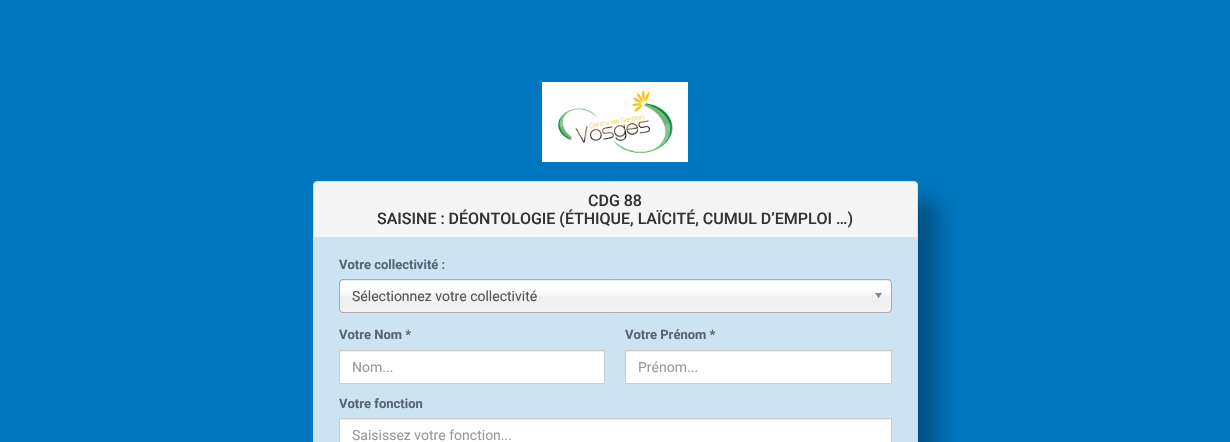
#include "include/core/SkBlurTypes.h"
#include "include/core/SkCanvas.h"
#include "include/core/SkData.h"
#include "include/core/SkFont.h"
#include "include/core/SkFontMgr.h"
#include "include/core/SkImage.h"
#include "include/core/SkMaskFilter.h"
#include "include/core/SkPaint.h"
#include "include/core/SkPathBuilder.h"
#include "include/core/SkTextBlob.h"
#include "include/effects/SkDashPathEffect.h"
#include "include/effects/SkGradientShader.h"
#include "include/utils/SkParsePath.h"

extern sk_sp<SkFontMgr> fontMgr;

void draw(SkCanvas* canvas) {
  SkPaint p;
  p.setAntiAlias(true);
  canvas->clear(SkColorSetRGB(0, 118, 190));
  canvas->drawImageRect(SkImages::DeferredFromEncodedData(SkData::MakeFromFileName("images/1.png")), SkRect::MakeLTRB(542, 82, 688, 162), SkSamplingOptions());
  p.setColor(SkColorSetARGB(77, 0, 0, 0));
  p.setMaskFilter(SkMaskFilter::MakeBlur(kNormal_SkBlurStyle, 10));
  canvas->drawRoundRect(SkRect::MakeLTRB(333, 201, 938, 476), 4, 4, p);
  p.setMaskFilter(nullptr);
  p.setColor(SkColorSetRGB(204, 228, 242));
  canvas->drawRoundRect(SkRect::MakeLTRB(313.5f, 181.5f, 917.5f, 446.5f), 3.5f, 3.5f, p);
  p.setStyle(SkPaint::kStroke_Style);
  p.setStrokeWidth(1);
  p.setColor(SkColorSetRGB(221, 221, 221));
  canvas->drawRoundRect(SkRect::MakeLTRB(313.5f, 181.5f, 917.5f, 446.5f), 3.5f, 3.5f, p);
  p.setStyle(SkPaint::kFill_Style);
  p.setColor(SkColorSetRGB(245, 245, 245));
  canvas->drawPath(SkPathBuilder().moveTo(317, 182).lineTo(914, 182).cubicTo(915.5f, 182, 917, 183.5f, 917, 185).lineTo(917, 238).lineTo(314, 238).lineTo(314, 185).cubicTo(314, 183.5f, 315.5f, 182, 317, 182).close().detach(), p);
  p.setColor(SkColorSetRGB(221, 221, 221));
  canvas->drawRect(SkRect::MakeLTRB(314, 237, 917, 238), p);
  {
    const SkColor colors[] = {SK_ColorWHITE, SkColorSetRGB(246, 246, 246), SkColorSetRGB(238, 238, 238), SkColorSetRGB(244, 244, 244)};
    const float stops[] = {0.2f, 0.5f, 0.52f, 1};
    const SkPoint ends[] = {{616, 280}, {616, 312}};
    p.setShader(SkGradientShader::MakeLinear(ends, colors, stops, 4, SkTileMode::kClamp));
    p.setAlpha(255);
  }
  canvas->drawRoundRect(SkRect::MakeLTRB(340, 280, 891, 312), 3, 3, p);
  p.setShader(nullptr);
  p.setColor(SkColorSetARGB(18, 0, 0, 0));
  canvas->drawPath(SkPathBuilder().moveTo(343, 281).lineTo(888, 281).cubicTo(890, 281, 891, 282, 891, 284).lineTo(891, 283).cubicTo(891, 281, 890, 280, 888, 280).lineTo(343, 280).cubicTo(341, 280, 340, 281, 340, 283).lineTo(340, 284).cubicTo(340, 282, 341, 281, 343, 281).close().detach(), p);
  p.setStyle(SkPaint::kStroke_Style);
  p.setColor(SkColorSetRGB(170, 170, 170));
  canvas->drawRoundRect(SkRect::MakeLTRB(339.5f, 279.5f, 891.5f, 312.5f), 3.5f, 3.5f, p);
  canvas->drawImageRect(SkImages::DeferredFromEncodedData(SkData::MakeFromFileName("images/2.png")), SkRect::MakeLTRB(875, 293, 882, 299), SkSamplingOptions());
  p.setStyle(SkPaint::kFill_Style);
  p.setColor(SK_ColorWHITE);
  canvas->drawRect(SkRect::MakeLTRB(340, 352, 604, 383), p);
  p.setColor(SkColorSetRGB(236, 236, 236));
  canvas->drawRect(SkRect::MakeLTRB(340, 351, 604, 352), p);
  p.setStyle(SkPaint::kStroke_Style);
  p.setColor(SkColorSetRGB(204, 204, 204));
  canvas->drawRect(SkRect::MakeLTRB(339.5f, 350.5f, 604.5f, 383.5f), p);
  p.setStyle(SkPaint::kFill_Style);
  p.setColor(SK_ColorWHITE);
  canvas->drawRect(SkRect::MakeLTRB(626, 352, 891, 383), p);
  p.setColor(SkColorSetRGB(236, 236, 236));
  canvas->drawRect(SkRect::MakeLTRB(626, 351, 891, 352), p);
  p.setStyle(SkPaint::kStroke_Style);
  p.setColor(SkColorSetRGB(204, 204, 204));
  canvas->drawRect(SkRect::MakeLTRB(625.5f, 350.5f, 891.5f, 383.5f), p);
  p.setStyle(SkPaint::kFill_Style);
  p.setColor(SK_ColorWHITE);
  canvas->drawRect(SkRect::MakeLTRB(340, 420, 891, 442), p);
  p.setColor(SkColorSetRGB(236, 236, 236));
  canvas->drawRect(SkRect::MakeLTRB(340, 419, 891, 420), p);
  p.setStyle(SkPaint::kStroke_Style);
  p.setColor(SkColorSetRGB(204, 204, 204));
  canvas->drawRect(SkRect::MakeLTRB(339.5f, 418.5f, 891.5f, 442.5f), p);
  SkFont font1(fontMgr->matchFamilyStyle("Roboto", SkFontStyle(500, SkFontStyle::kNormal_Width, SkFontStyle::kUpright_Slant)), 16);
  font1.setSubpixel(true);
  p.setStyle(SkPaint::kFill_Style);
  p.setColor(SkColorSetRGB(51, 51, 51));
  canvas->drawString("CDG 88", 588, 206, font1, p);
  canvas->drawString("SAISINE : DÉONTOLOGIE (ÉTHIQUE, LAÏCITÉ, CUMUL D’EMPLOI …)", 377, 224, font1, p);
  SkFont font2(fontMgr->matchFamilyStyle("Roboto", SkFontStyle::Bold()), 13);
  font2.setSubpixel(true);
  p.setColor(SkColorSetRGB(87, 100, 113));
  canvas->drawString("Votre collectivité :", 339, 269, font2, p);
  SkFont font3(fontMgr->matchFamilyStyle("Roboto", SkFontStyle::Normal()), 14);
  font3.setSubpixel(true);
  p.setColor(SkColorSetRGB(85, 85, 85));
  canvas->drawString("Sélectionnez votre collectivité", 352, 301, font3, p);
  p.setColor(SkColorSetRGB(87, 100, 113));
  canvas->drawString("Votre Nom *", 339, 339, font2, p);
  p.setColor(SkColorSetRGB(153, 153, 153));
  canvas->drawString("Nom...", 352, 372, font3, p);
  p.setColor(SkColorSetRGB(87, 100, 113));
  canvas->drawString("Votre Prénom *", 625, 339, font2, p);
  p.setColor(SkColorSetRGB(153, 153, 153));
  canvas->drawString("Prénom...", 638, 372, font3, p);
  p.setColor(SkColorSetRGB(87, 100, 113));
  canvas->drawString("Votre fonction", 339, 408, font2, p);
  p.setColor(SkColorSetRGB(153, 153, 153));
  canvas->drawString("Saisissez votre fonction...", 352, 440, font3, p);
}
